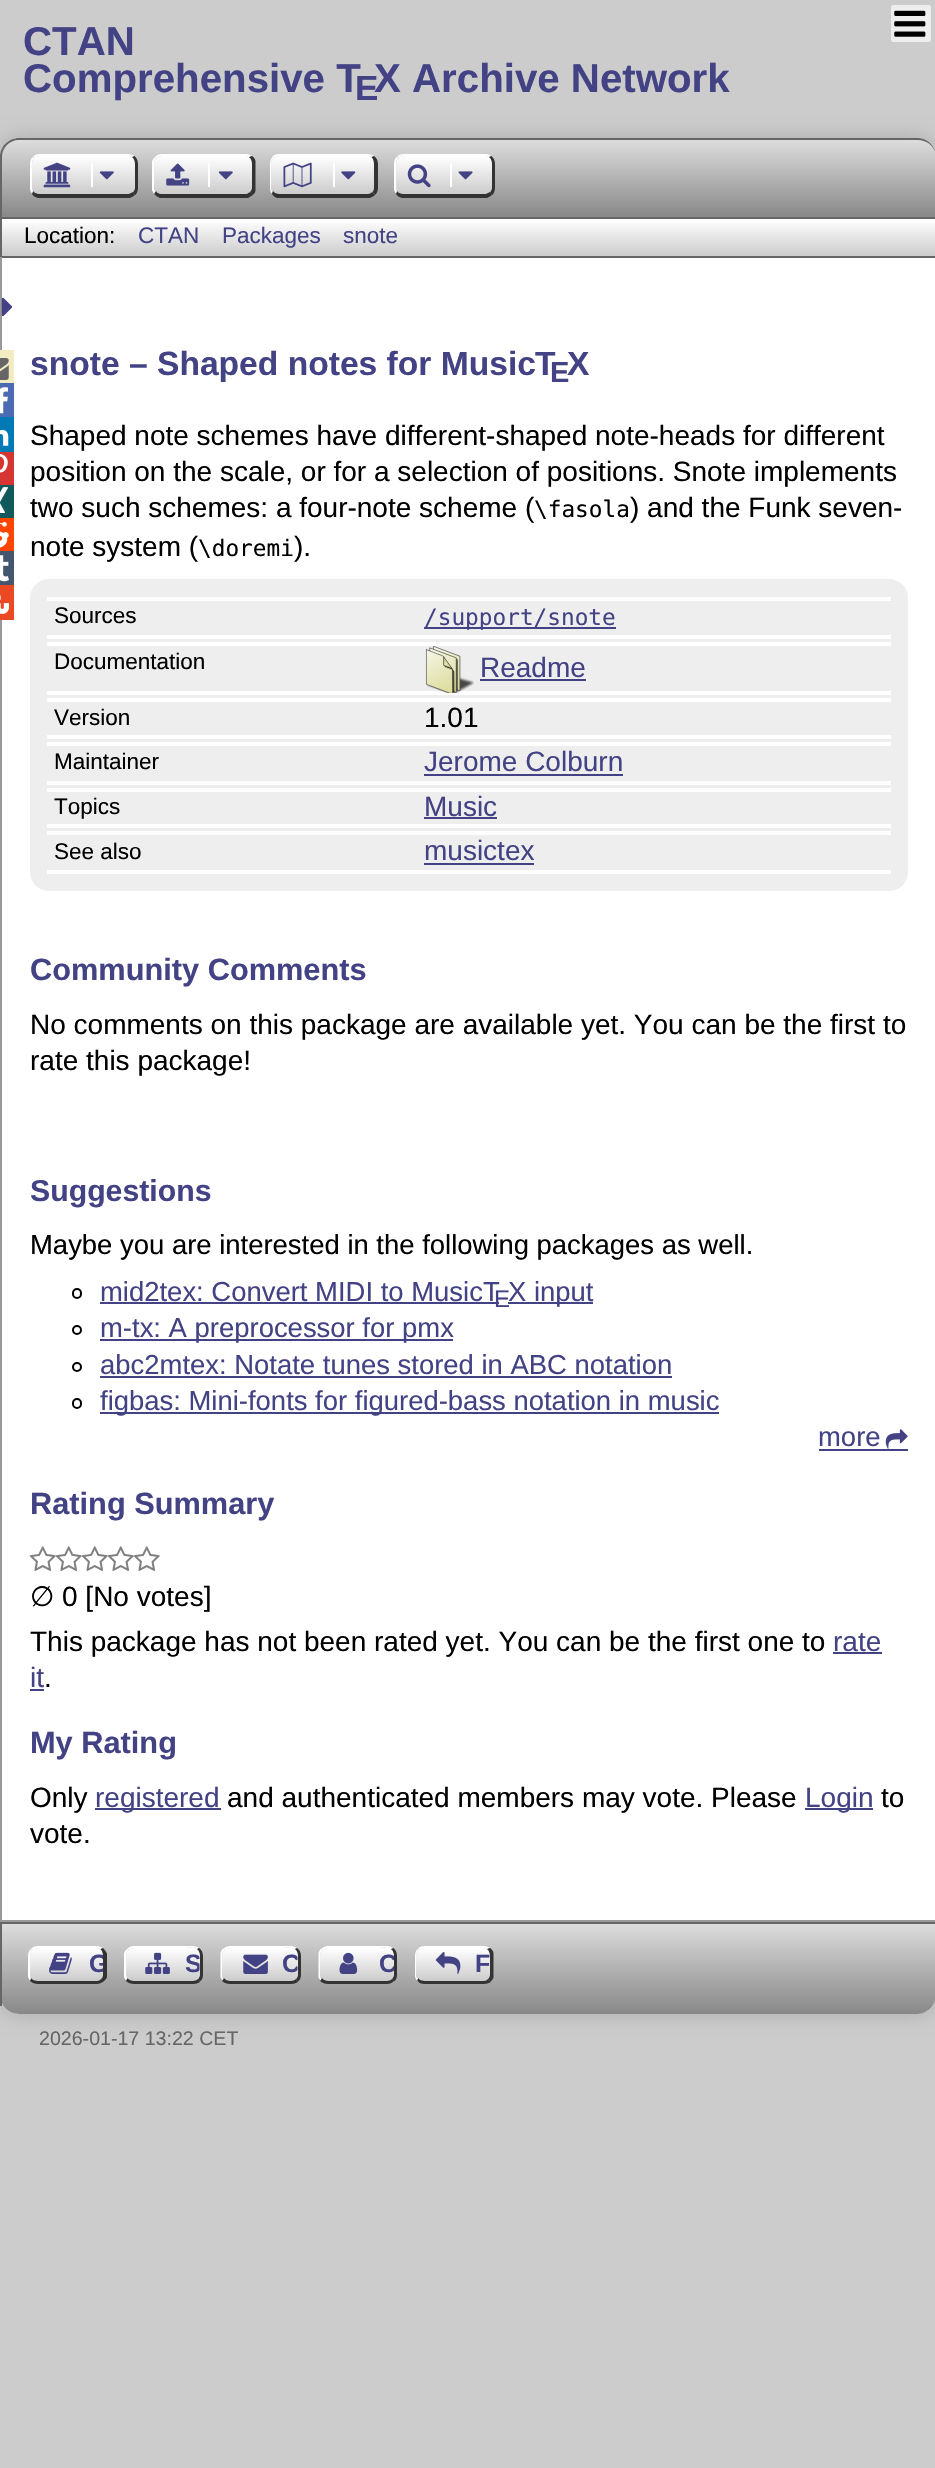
#include "include/core/SkBlurTypes.h"
#include "include/core/SkCanvas.h"
#include "include/core/SkData.h"
#include "include/core/SkFont.h"
#include "include/core/SkFontMgr.h"
#include "include/core/SkImage.h"
#include "include/core/SkMaskFilter.h"
#include "include/core/SkPaint.h"
#include "include/core/SkPathBuilder.h"
#include "include/core/SkTextBlob.h"
#include "include/effects/SkDashPathEffect.h"
#include "include/effects/SkGradientShader.h"
#include "include/utils/SkParsePath.h"

extern sk_sp<SkFontMgr> fontMgr;

void draw(SkCanvas* canvas) {
  SkPaint p;
  p.setAntiAlias(true);
  canvas->clear(SkColorSetRGB(204, 204, 204));
  p.setColor(SkColorSetRGB(238, 238, 238));
  canvas->drawRoundRect(SkRect::MakeLTRB(891, 5, 931, 42), 2.5f, 2.5f, p);
  canvas->drawImageRect(SkImages::DeferredFromEncodedData(SkData::MakeFromFileName("images/1.png")), SkRect::MakeLTRB(894, 10, 926, 37), SkSamplingOptions());
  p.setColor(SkColorSetRGB(170, 170, 170));
  p.setMaskFilter(SkMaskFilter::MakeBlur(kNormal_SkBlurStyle, 11));
  canvas->drawRoundRect(SkRect::MakeLTRB(0, 138, 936, 2014), 19, 19, p);
  p.setMaskFilter(nullptr);
  p.setColor(SK_ColorWHITE);
  canvas->drawRoundRect(SkRect::MakeLTRB(0, 138, 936, 2014), 19, 19, p);
  canvas->save();
  canvas->clipPath(SkPathBuilder().moveTo(19, 138).lineTo(917, 138).cubicTo(927.5f, 138, 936, 146.5f, 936, 157).lineTo(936, 217).lineTo(0, 217).lineTo(0, 157).cubicTo(0, 146.5f, 8.5f, 138, 19, 138).close().detach(), true);
  {
    const SkColor colors[] = {SkColorSetRGB(221, 221, 221), SkColorSetRGB(136, 136, 136)};
    const float stops[] = {0, 1};
    const SkPoint ends[] = {{469, 140}, {469, 217}};
    p.setShader(SkGradientShader::MakeLinear(ends, colors, stops, 2, SkTileMode::kClamp));
    p.setAlpha(255);
  }
  canvas->drawRect(SkRect::MakeLTRB(0, 140, 935, 217), p);
  canvas->restore();
  p.setShader(nullptr);
  p.setColor(SkColorSetRGB(102, 102, 102));
  canvas->drawPath(SkPathBuilder(SkPathFillType::kEvenOdd).moveTo(19, 138).lineTo(918, 138).cubicTo(928, 138, 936, 147, 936, 157).lineTo(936, 217).lineTo(0, 217).lineTo(0, 157).cubicTo(0, 147, 8, 138, 19, 138).close().moveTo(19, 140).lineTo(918, 140).cubicTo(928, 140, 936, 148, 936, 157).lineTo(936, 217).lineTo(2, 217).lineTo(2, 157).cubicTo(2, 148, 9, 140, 19, 140).close().detach(), p);
  {
    const SkColor colors[] = {SK_ColorWHITE, SkColorSetRGB(204, 204, 204)};
    const float stops[] = {0, 1};
    const SkPoint ends[] = {{83, 156}, {83, 194}};
    p.setShader(SkGradientShader::MakeLinear(ends, colors, stops, 2, SkTileMode::kClamp));
    p.setAlpha(255);
  }
  canvas->drawPath(SkPathBuilder().moveTo(40, 156).lineTo(128, 156).cubicTo(132, 156, 135, 159, 135, 164).lineTo(135, 188).cubicTo(135, 191, 132, 194, 128, 194).lineTo(40, 194).cubicTo(35, 194, 32, 191, 32, 188).lineTo(32, 164).cubicTo(32, 159, 35, 156, 40, 156).close().detach(), p);
  p.setShader(nullptr);
  p.setColor(SK_ColorWHITE);
  canvas->drawPath(SkPathBuilder().moveTo(40, 154).cubicTo(37, 154, 34, 155, 33, 157).lineTo(34, 158).cubicTo(35, 157, 37, 156, 40, 156).lineTo(128, 156).cubicTo(129, 156, 131, 156, 132, 157).lineTo(134, 156).cubicTo(133, 155, 131, 154, 128, 154).close().detach(), p);
  p.setColor(SkColorSetRGB(51, 51, 51));
  canvas->drawPath(SkPathBuilder().moveTo(134.5f, 156).cubicTo(136.5f, 157.5f, 138, 160.5f, 138, 164).lineTo(138, 188).cubicTo(138, 190.5f, 137, 193, 135.5f, 195).lineTo(133, 192.5f).cubicTo(134, 191, 135, 189.5f, 135, 188).lineTo(135, 164).cubicTo(135, 161, 134, 158.5f, 132, 157).close().detach(), p);
  canvas->drawPath(SkPathBuilder().moveTo(38, 198).cubicTo(35, 197, 33, 196, 32, 194).lineTo(33, 191).cubicTo(34, 193, 36, 193, 38, 194).lineTo(129, 194).lineTo(133, 192).lineTo(135, 195).cubicTo(134, 196, 132, 197, 130, 198).close().detach(), p);
  p.setColor(SK_ColorWHITE);
  canvas->drawPath(SkPathBuilder().moveTo(32.5f, 157).cubicTo(31, 158.5f, 30, 161, 30, 164).lineTo(30, 188).cubicTo(30, 190, 30.5f, 192, 32, 193.5f).lineTo(33, 191).cubicTo(32.5f, 190, 32, 189, 32, 188).lineTo(32, 164).cubicTo(32, 161.5f, 32.5f, 159.5f, 34, 158.5f).close().detach(), p);
  canvas->drawImageRect(SkImages::DeferredFromEncodedData(SkData::MakeFromFileName("images/2.png")), SkRect::MakeLTRB(43, 162, 71, 188), SkSamplingOptions());
  canvas->drawRect(SkRect::MakeLTRB(91, 163, 93, 187), p);
  canvas->drawImageRect(SkImages::DeferredFromEncodedData(SkData::MakeFromFileName("images/3.png")), SkRect::MakeLTRB(99, 171, 114, 180), SkSamplingOptions());
  {
    const SkColor colors[] = {SK_ColorWHITE, SkColorSetRGB(204, 204, 204)};
    const float stops[] = {0, 1};
    const SkPoint ends[] = {{203, 156}, {203, 194}};
    p.setShader(SkGradientShader::MakeLinear(ends, colors, stops, 2, SkTileMode::kClamp));
    p.setAlpha(255);
  }
  canvas->drawPath(SkPathBuilder().moveTo(162, 156).lineTo(246, 156).cubicTo(249, 156, 252, 159, 252, 164).lineTo(252, 188).cubicTo(252, 191, 249, 194, 246, 194).lineTo(162, 194).cubicTo(158, 194, 154, 191, 154, 188).lineTo(154, 164).cubicTo(154, 159, 158, 156, 162, 156).close().detach(), p);
  p.setShader(nullptr);
  p.setColor(SK_ColorWHITE);
  canvas->drawPath(SkPathBuilder().moveTo(162, 154).cubicTo(159, 154, 157, 155, 155, 157).lineTo(156, 158).lineTo(160, 156).lineTo(246, 156).lineTo(249, 157).lineTo(252, 156).cubicTo(250, 155, 248, 154, 246, 154).close().detach(), p);
  p.setColor(SkColorSetRGB(51, 51, 51));
  canvas->drawPath(SkPathBuilder().moveTo(255.5f, 191).cubicTo(255, 192.5f, 254, 194, 252.5f, 195).lineTo(250, 192).cubicTo(251, 191, 252, 189.5f, 252, 188).lineTo(252, 164).cubicTo(252, 161, 251, 158.5f, 249, 157).lineTo(252, 156).cubicTo(253.5f, 157, 255, 158.5f, 255.5f, 161).close().detach(), p);
  canvas->drawPath(SkPathBuilder().moveTo(160, 198).cubicTo(158, 197, 156, 196, 154, 194).lineTo(156, 191).cubicTo(157, 193, 158, 193, 160, 194).lineTo(247, 194).lineTo(250, 192).lineTo(253, 195).cubicTo(251, 196, 250, 197, 248, 198).close().detach(), p);
  p.setColor(SK_ColorWHITE);
  canvas->drawPath(SkPathBuilder().moveTo(152, 161.5f).cubicTo(152.5f, 160, 153.5f, 158, 155, 157).lineTo(156.5f, 158).cubicTo(155, 159.5f, 154, 161.5f, 154, 164).lineTo(154, 188).cubicTo(154, 189, 154.5f, 190.5f, 155.5f, 191).lineTo(154, 194).cubicTo(153.5f, 192.5f, 152.5f, 191.5f, 152, 190).close().detach(), p);
  canvas->drawImageRect(SkImages::DeferredFromEncodedData(SkData::MakeFromFileName("images/4.png")), SkRect::MakeLTRB(166, 163, 190, 186), SkSamplingOptions());
  canvas->drawRect(SkRect::MakeLTRB(208, 163, 210, 187), p);
  canvas->drawImageRect(SkImages::DeferredFromEncodedData(SkData::MakeFromFileName("images/3.png")), SkRect::MakeLTRB(218, 171, 233, 180), SkSamplingOptions());
  {
    const SkColor colors[] = {SK_ColorWHITE, SkColorSetRGB(204, 204, 204)};
    const float stops[] = {0, 1};
    const SkPoint ends[] = {{323, 156}, {323, 194}};
    p.setShader(SkGradientShader::MakeLinear(ends, colors, stops, 2, SkTileMode::kClamp));
    p.setAlpha(255);
  }
  canvas->drawPath(SkPathBuilder().moveTo(279, 156).lineTo(368, 156).cubicTo(372, 156, 374, 159, 374, 164).lineTo(374, 188).cubicTo(374, 191, 372, 194, 368, 194).lineTo(279, 194).cubicTo(275, 194, 271, 191, 271, 188).lineTo(271, 164).cubicTo(271, 159, 275, 156, 279, 156).close().detach(), p);
  p.setShader(nullptr);
  p.setColor(SK_ColorWHITE);
  canvas->drawPath(SkPathBuilder().moveTo(279, 154).cubicTo(276, 154, 274, 155, 272, 157).lineTo(274, 158).cubicTo(275, 157, 277, 156, 278, 156).lineTo(369, 156).lineTo(372, 157).lineTo(374, 156).cubicTo(373, 155, 370, 154, 368, 154).close().detach(), p);
  p.setColor(SkColorSetRGB(51, 51, 51));
  canvas->drawPath(SkPathBuilder().moveTo(378, 188).lineTo(378, 164).cubicTo(378, 160.5f, 376.5f, 157.5f, 374, 156).lineTo(371.5f, 157).cubicTo(373, 158.5f, 374, 161, 374, 164).lineTo(374, 188).cubicTo(374, 189.5f, 373.5f, 191, 372.5f, 192).lineTo(375, 195).cubicTo(377, 193, 378, 190.5f, 378, 188).close().detach(), p);
  canvas->drawPath(SkPathBuilder().moveTo(277, 198).cubicTo(275, 197, 273, 196, 272, 194).lineTo(273, 191).cubicTo(274, 193, 277, 194, 279, 194).lineTo(368, 194).cubicTo(370, 194, 371, 193, 372, 192).lineTo(375, 195).cubicTo(374, 196, 372, 197, 370, 198).close().detach(), p);
  p.setColor(SK_ColorWHITE);
  canvas->drawPath(SkPathBuilder().moveTo(272.5f, 157).cubicTo(271, 158.5f, 270, 161, 270, 164).lineTo(270, 188).cubicTo(270, 190, 270.5f, 192, 271.5f, 193.5f).lineTo(272.5f, 191.5f).cubicTo(271.5f, 190.5f, 271, 189, 271, 188).lineTo(271, 164).cubicTo(271, 161.5f, 272, 159.5f, 273.5f, 158).close().detach(), p);
  canvas->drawImageRect(SkImages::DeferredFromEncodedData(SkData::MakeFromFileName("images/5.png")), SkRect::MakeLTRB(283, 162, 312, 188), SkSamplingOptions());
  canvas->drawRect(SkRect::MakeLTRB(333, 163, 335, 187), p);
  canvas->drawImageRect(SkImages::DeferredFromEncodedData(SkData::MakeFromFileName("images/6.png")), SkRect::MakeLTRB(341, 171, 356, 180), SkSamplingOptions());
  {
    const SkColor colors[] = {SK_ColorWHITE, SkColorSetRGB(204, 204, 204)};
    const float stops[] = {0, 1};
    const SkPoint ends[] = {{444, 156}, {444, 194}};
    p.setShader(SkGradientShader::MakeLinear(ends, colors, stops, 2, SkTileMode::kClamp));
    p.setAlpha(255);
  }
  canvas->drawPath(SkPathBuilder().moveTo(404, 156).lineTo(485, 156).cubicTo(489, 156, 492, 159, 492, 164).lineTo(492, 188).cubicTo(492, 191, 489, 194, 485, 194).lineTo(404, 194).cubicTo(399, 194, 396, 191, 396, 188).lineTo(396, 164).cubicTo(396, 159, 399, 156, 404, 156).close().detach(), p);
  p.setShader(nullptr);
  p.setColor(SK_ColorWHITE);
  canvas->drawPath(SkPathBuilder().moveTo(404, 154).cubicTo(401, 154, 398, 155, 397, 157).lineTo(398, 158).cubicTo(399, 157, 401, 156, 404, 156).lineTo(485, 156).cubicTo(486, 156, 488, 156, 489, 157).lineTo(491, 156).cubicTo(490, 155, 488, 154, 485, 154).close().detach(), p);
  p.setColor(SkColorSetRGB(51, 51, 51));
  canvas->drawPath(SkPathBuilder().moveTo(491.5f, 156).cubicTo(493.5f, 157.5f, 495, 160.5f, 495, 164).lineTo(495, 188).cubicTo(495, 190.5f, 494, 193, 492.5f, 195).lineTo(490, 192.5f).cubicTo(491, 191, 492, 189.5f, 492, 188).lineTo(492, 164).cubicTo(492, 161, 491, 158.5f, 489, 157).close().detach(), p);
  canvas->drawPath(SkPathBuilder().moveTo(402, 198).cubicTo(399, 197, 397, 196, 396, 194).lineTo(397, 191).cubicTo(398, 193, 400, 193, 402, 194).lineTo(486, 194).lineTo(490, 192).lineTo(492, 195).cubicTo(491, 196, 489, 197, 487, 198).close().detach(), p);
  p.setColor(SK_ColorWHITE);
  canvas->drawPath(SkPathBuilder().moveTo(396.5f, 157).cubicTo(395, 158.5f, 394, 161, 394, 164).lineTo(394, 188).cubicTo(394, 190, 394.5f, 192, 396, 193.5f).lineTo(397, 191).cubicTo(396.5f, 190, 396, 189, 396, 188).lineTo(396, 164).cubicTo(396, 161.5f, 396.5f, 159.5f, 398, 158.5f).close().detach(), p);
  canvas->drawImageRect(SkImages::DeferredFromEncodedData(SkData::MakeFromFileName("images/7.png")), SkRect::MakeLTRB(407, 164, 431, 188), SkSamplingOptions());
  canvas->drawRect(SkRect::MakeLTRB(450, 163, 452, 187), p);
  canvas->drawImageRect(SkImages::DeferredFromEncodedData(SkData::MakeFromFileName("images/8.png")), SkRect::MakeLTRB(458, 171, 473, 180), SkSamplingOptions());
  {
    const SkColor colors[] = {SK_ColorWHITE, SkColorSetRGB(204, 204, 204)};
    const float stops[] = {0, 1};
    const SkPoint ends[] = {{469, 219}, {469, 256}};
    p.setShader(SkGradientShader::MakeLinear(ends, colors, stops, 2, SkTileMode::kClamp));
    p.setAlpha(255);
  }
  canvas->drawRect(SkRect::MakeLTRB(2, 221, 935, 256), p);
  p.setShader(nullptr);
  p.setColor(SkColorSetRGB(102, 102, 102));
  canvas->drawRect(SkRect::MakeLTRB(0, 217, 935, 219), p);
  canvas->drawRect(SkRect::MakeLTRB(0, 256, 935, 258), p);
  canvas->drawRect(SkRect::MakeLTRB(0, 217, 2, 257), p);
  p.setColor(SkColorSetRGB(153, 153, 153));
  canvas->drawRect(SkRect::MakeLTRB(0, 1920, 935, 1922), p);
  canvas->drawRect(SkRect::MakeLTRB(0, 257, 2, 1922), p);
  p.setColor(SkColorSetRGB(238, 238, 238));
  canvas->drawRoundRect(SkRect::MakeLTRB(30, 579, 908, 891), 19, 19, p);
  p.setColor(SK_ColorWHITE);
  canvas->drawRect(SkRect::MakeLTRB(47, 597, 891, 601), p);
  canvas->drawRect(SkRect::MakeLTRB(47, 635, 891, 639), p);
  p.setColor(SkColorSetRGB(66, 66, 133));
  canvas->drawRect(SkRect::MakeLTRB(424, 627, 616, 629), p);
  p.setColor(SK_ColorWHITE);
  canvas->drawRect(SkRect::MakeLTRB(47, 642, 891, 646), p);
  canvas->drawRect(SkRect::MakeLTRB(47, 691, 891, 695), p);
  canvas->drawImageRect(SkImages::DeferredFromEncodedData(SkData::MakeFromFileName("images/9.png")), SkRect::MakeLTRB(425, 646, 474, 693), SkSamplingOptions());
  p.setColor(SkColorSetRGB(66, 66, 133));
  canvas->drawRect(SkRect::MakeLTRB(480, 679, 586, 681), p);
  p.setColor(SK_ColorWHITE);
  canvas->drawRect(SkRect::MakeLTRB(47, 698, 891, 702), p);
  canvas->drawRect(SkRect::MakeLTRB(47, 735, 891, 739), p);
  canvas->drawRect(SkRect::MakeLTRB(47, 742, 891, 746), p);
  canvas->drawRect(SkRect::MakeLTRB(47, 781, 891, 785), p);
  p.setColor(SkColorSetRGB(66, 66, 133));
  canvas->drawRect(SkRect::MakeLTRB(424, 774, 623, 776), p);
  p.setColor(SK_ColorWHITE);
  canvas->drawRect(SkRect::MakeLTRB(47, 788, 891, 792), p);
  canvas->drawRect(SkRect::MakeLTRB(47, 824, 891, 828), p);
  p.setColor(SkColorSetRGB(66, 66, 133));
  canvas->drawRect(SkRect::MakeLTRB(424, 817, 497, 819), p);
  p.setColor(SK_ColorWHITE);
  canvas->drawRect(SkRect::MakeLTRB(47, 831, 891, 835), p);
  canvas->drawRect(SkRect::MakeLTRB(47, 870, 891, 874), p);
  p.setColor(SkColorSetRGB(66, 66, 133));
  canvas->drawRect(SkRect::MakeLTRB(424, 863, 534, 865), p);
  p.setStyle(SkPaint::kStroke_Style);
  p.setStrokeWidth(2);
  p.setColor(SK_ColorBLACK);
  canvas->drawRoundRect(SkRect::MakeLTRB(73, 1289, 81, 1298), 4, 4, p);
  p.setStyle(SkPaint::kFill_Style);
  p.setColor(SkColorSetRGB(66, 66, 133));
  canvas->drawRect(SkRect::MakeLTRB(100, 1302, 499, 1304), p);
  canvas->drawRect(SkRect::MakeLTRB(508, 1302, 593, 1304), p);
  p.setStyle(SkPaint::kStroke_Style);
  p.setColor(SK_ColorBLACK);
  canvas->drawCircle(77, 1330, 4, p);
  p.setStyle(SkPaint::kFill_Style);
  p.setColor(SkColorSetRGB(66, 66, 133));
  canvas->drawRect(SkRect::MakeLTRB(100, 1339, 453, 1341), p);
  p.setStyle(SkPaint::kStroke_Style);
  p.setColor(SK_ColorBLACK);
  canvas->drawCircle(77, 1367, 4, p);
  p.setStyle(SkPaint::kFill_Style);
  p.setColor(SkColorSetRGB(66, 66, 133));
  canvas->drawRect(SkRect::MakeLTRB(100, 1376, 672, 1378), p);
  p.setStyle(SkPaint::kStroke_Style);
  p.setColor(SK_ColorBLACK);
  canvas->drawRoundRect(SkRect::MakeLTRB(73, 1399, 81, 1408), 4, 4, p);
  p.setStyle(SkPaint::kFill_Style);
  p.setColor(SkColorSetRGB(66, 66, 133));
  canvas->drawRect(SkRect::MakeLTRB(100, 1412, 719, 1414), p);
  canvas->drawRect(SkRect::MakeLTRB(819, 1449, 908, 1451), p);
  canvas->drawImageRect(SkImages::DeferredFromEncodedData(SkData::MakeFromFileName("images/10.png")), SkRect::MakeLTRB(885, 1429, 908, 1449), SkSamplingOptions());
  canvas->drawImageRect(SkImages::DeferredFromEncodedData(SkData::MakeFromFileName("images/11.png")), SkRect::MakeLTRB(29, 1546, 160, 1571), SkSamplingOptions());
  canvas->drawRect(SkRect::MakeLTRB(833, 1652, 882, 1654), p);
  canvas->drawRect(SkRect::MakeLTRB(30, 1689, 44, 1691), p);
  canvas->drawRect(SkRect::MakeLTRB(95, 1808, 221, 1810), p);
  canvas->drawRect(SkRect::MakeLTRB(805, 1808, 873, 1810), p);
  {
    const SkColor colors[] = {SkColorSetRGB(221, 221, 221), SkColorSetRGB(136, 136, 136)};
    const float stops[] = {0, 1};
    const SkPoint ends[] = {{469, 1923}, {469, 2014}};
    p.setShader(SkGradientShader::MakeLinear(ends, colors, stops, 2, SkTileMode::kClamp));
    p.setAlpha(255);
  }
  canvas->drawPath(SkPathBuilder().moveTo(0, 1923).lineTo(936, 1923).lineTo(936, 1995).cubicTo(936, 2005.5f, 927.5f, 2014, 917, 2014).lineTo(19, 2014).cubicTo(8.5f, 2014, 0, 2005.5f, 0, 1995).close().detach(), p);
  p.setShader(nullptr);
  p.setColor(SkColorSetRGB(102, 102, 102));
  canvas->drawRect(SkRect::MakeLTRB(0, 1922, 935, 1924), p);
  canvas->drawRect(SkRect::MakeLTRB(0, 1922, 2, 2006), p);
  {
    const SkColor colors[] = {SK_ColorWHITE, SkColorSetRGB(204, 204, 204)};
    const float stops[] = {0, 1};
    const SkPoint ends[] = {{67, 1948}, {67, 1981}};
    p.setShader(SkGradientShader::MakeLinear(ends, colors, stops, 2, SkTileMode::kClamp));
    p.setAlpha(255);
  }
  canvas->drawPath(SkPathBuilder().moveTo(38, 1948).lineTo(97, 1948).cubicTo(100, 1948, 103, 1951, 103, 1956).lineTo(103, 1975).cubicTo(103, 1978, 100, 1981, 97, 1981).lineTo(38, 1981).cubicTo(33, 1981, 30, 1978, 30, 1975).lineTo(30, 1956).cubicTo(30, 1951, 33, 1948, 38, 1948).close().detach(), p);
  p.setShader(nullptr);
  p.setColor(SK_ColorWHITE);
  canvas->drawPath(SkPathBuilder().moveTo(38, 1946).cubicTo(35, 1946, 32, 1947, 31, 1949).lineTo(32, 1950).cubicTo(34, 1949, 36, 1948, 38, 1948).lineTo(97, 1948).cubicTo(98, 1948, 99, 1948, 100, 1949).lineTo(103, 1948).cubicTo(101, 1947, 99, 1946, 97, 1946).close().detach(), p);
  p.setColor(SkColorSetRGB(51, 51, 51));
  canvas->drawPath(SkPathBuilder().moveTo(107, 1977).cubicTo(106.5f, 1978.5f, 105, 1980.5f, 103.5f, 1981.5f).lineTo(101, 1979).cubicTo(102.5f, 1978, 103, 1976.5f, 103, 1975).lineTo(103, 1956).cubicTo(103, 1953, 102, 1950.5f, 100.5f, 1949).lineTo(103, 1948).cubicTo(104.5f, 1949.5f, 106, 1951.5f, 107, 1953.5f).close().detach(), p);
  canvas->drawPath(SkPathBuilder().moveTo(104, 1981).cubicTo(102, 1983, 99, 1984, 97, 1984).lineTo(38, 1984).cubicTo(35, 1984, 32, 1983, 30, 1981).lineTo(31, 1978).cubicTo(32, 1980, 35, 1981, 38, 1981).lineTo(97, 1981).cubicTo(99, 1981, 100, 1980, 101, 1979).close().detach(), p);
  p.setColor(SK_ColorWHITE);
  canvas->drawPath(SkPathBuilder().moveTo(28, 1956).lineTo(28, 1975).cubicTo(28, 1977, 28.5f, 1979, 30, 1980.5f).lineTo(31, 1978).cubicTo(30.5f, 1977, 30, 1976, 30, 1975).lineTo(30, 1956).cubicTo(30, 1953.5f, 31, 1951.5f, 32, 1950).lineTo(31, 1949).cubicTo(29, 1950.5f, 28, 1953, 28, 1956).close().detach(), p);
  canvas->drawImageRect(SkImages::DeferredFromEncodedData(SkData::MakeFromFileName("images/12.png")), SkRect::MakeLTRB(49, 1952, 72, 1974), SkSamplingOptions());
  {
    const SkColor colors[] = {SK_ColorWHITE, SkColorSetRGB(204, 204, 204)};
    const float stops[] = {0, 1};
    const SkPoint ends[] = {{163, 1948}, {163, 1981}};
    p.setShader(SkGradientShader::MakeLinear(ends, colors, stops, 2, SkTileMode::kClamp));
    p.setAlpha(255);
  }
  canvas->drawPath(SkPathBuilder().moveTo(134, 1948).lineTo(193, 1948).cubicTo(197, 1948, 200, 1951, 200, 1956).lineTo(200, 1975).cubicTo(200, 1978, 197, 1981, 193, 1981).lineTo(134, 1981).cubicTo(130, 1981, 126, 1978, 126, 1975).lineTo(126, 1956).cubicTo(126, 1951, 130, 1948, 134, 1948).close().detach(), p);
  p.setShader(nullptr);
  p.setColor(SK_ColorWHITE);
  canvas->drawPath(SkPathBuilder().moveTo(134, 1946).cubicTo(131, 1946, 129, 1947, 127, 1949).lineTo(128, 1950).lineTo(132, 1948).lineTo(183, 1948).cubicTo(186, 1948, 193, 1947, 197, 1949).lineTo(199, 1948).cubicTo(198, 1947, 195, 1946, 193, 1946).close().detach(), p);
  p.setColor(SkColorSetRGB(51, 51, 51));
  canvas->drawPath(SkPathBuilder().moveTo(203, 1975).lineTo(203, 1956).cubicTo(203, 1952.5f, 201.5f, 1949.5f, 199, 1948).lineTo(197, 1949).cubicTo(199, 1950.5f, 200, 1953, 200, 1956).lineTo(200, 1975).cubicTo(200, 1976.5f, 199, 1978, 198, 1979.5f).lineTo(200, 1981.5f).cubicTo(202, 1980, 203, 1977.5f, 203, 1975).close().detach(), p);
  canvas->drawPath(SkPathBuilder().moveTo(200, 1982).cubicTo(198, 1983, 196, 1984, 193, 1984).lineTo(134, 1984).cubicTo(131, 1984, 128, 1983, 126, 1981).lineTo(127, 1978).cubicTo(129, 1980, 131, 1981, 134, 1981).lineTo(193, 1981).cubicTo(195, 1981, 197, 1980, 198, 1979).close().detach(), p);
  p.setColor(SK_ColorWHITE);
  canvas->drawPath(SkPathBuilder().moveTo(124, 1953.5f).cubicTo(124.5f, 1952, 125.5f, 1950, 127, 1949).lineTo(128.5f, 1950).cubicTo(127, 1951.5f, 126, 1953.5f, 126, 1956).lineTo(126, 1975).cubicTo(126, 1976, 126.5f, 1977, 127.5f, 1978).lineTo(126, 1980.5f).cubicTo(125.5f, 1979.5f, 124.5f, 1978.5f, 124, 1977).close().detach(), p);
  canvas->drawImageRect(SkImages::DeferredFromEncodedData(SkData::MakeFromFileName("images/13.png")), SkRect::MakeLTRB(145, 1952, 170, 1974), SkSamplingOptions());
  {
    const SkColor colors[] = {SK_ColorWHITE, SkColorSetRGB(204, 204, 204)};
    const float stops[] = {0, 1};
    const SkPoint ends[] = {{260, 1948}, {260, 1981}};
    p.setShader(SkGradientShader::MakeLinear(ends, colors, stops, 2, SkTileMode::kClamp));
    p.setAlpha(255);
  }
  canvas->drawPath(SkPathBuilder().moveTo(230, 1948).lineTo(291, 1948).cubicTo(295, 1948, 298, 1951, 298, 1956).lineTo(298, 1975).cubicTo(298, 1978, 295, 1981, 291, 1981).lineTo(230, 1981).cubicTo(226, 1981, 222, 1978, 222, 1975).lineTo(222, 1956).cubicTo(222, 1951, 226, 1948, 230, 1948).close().detach(), p);
  p.setShader(nullptr);
  p.setColor(SK_ColorWHITE);
  canvas->drawPath(SkPathBuilder().moveTo(230, 1946).cubicTo(228, 1946, 225, 1947, 223, 1949).lineTo(225, 1950).lineTo(229, 1948).lineTo(281, 1948).cubicTo(283, 1948, 291, 1947, 295, 1949).lineTo(297, 1948).cubicTo(296, 1947, 293, 1946, 291, 1946).close().detach(), p);
  p.setColor(SkColorSetRGB(51, 51, 51));
  canvas->drawPath(SkPathBuilder().moveTo(301, 1975).lineTo(301, 1956).cubicTo(301, 1952.5f, 299.5f, 1949.5f, 297, 1948).lineTo(295, 1949).cubicTo(297, 1950.5f, 298, 1953, 298, 1956).lineTo(298, 1975).cubicTo(298, 1976.5f, 297, 1978, 296, 1979.5f).lineTo(298, 1981.5f).cubicTo(300, 1980, 301, 1977.5f, 301, 1975).close().detach(), p);
  canvas->drawPath(SkPathBuilder().moveTo(298, 1982).cubicTo(296, 1983, 294, 1984, 291, 1984).lineTo(230, 1984).cubicTo(227, 1984, 224, 1983, 222, 1981).lineTo(224, 1978).cubicTo(225, 1980, 228, 1981, 230, 1981).lineTo(291, 1981).cubicTo(293, 1981, 295, 1980, 296, 1979).close().detach(), p);
  p.setColor(SK_ColorWHITE);
  canvas->drawPath(SkPathBuilder().moveTo(220.5f, 1953).cubicTo(221, 1951, 222, 1950, 223, 1948.5f).lineTo(224.5f, 1950).cubicTo(223, 1951.5f, 222, 1953.5f, 222, 1956).lineTo(222, 1975).cubicTo(222, 1976, 222.5f, 1977.5f, 223.5f, 1978.5f).lineTo(222.5f, 1980.5f).lineTo(220.5f, 1977.5f).close().detach(), p);
  canvas->drawImageRect(SkImages::DeferredFromEncodedData(SkData::MakeFromFileName("images/14.png")), SkRect::MakeLTRB(243, 1954, 268, 1974), SkSamplingOptions());
  {
    const SkColor colors[] = {SK_ColorWHITE, SkColorSetRGB(204, 204, 204)};
    const float stops[] = {0, 1};
    const SkPoint ends[] = {{357, 1948}, {357, 1981}};
    p.setShader(SkGradientShader::MakeLinear(ends, colors, stops, 2, SkTileMode::kClamp));
    p.setAlpha(255);
  }
  canvas->drawPath(SkPathBuilder().moveTo(328, 1948).lineTo(387, 1948).cubicTo(391, 1948, 394, 1951, 394, 1956).lineTo(394, 1975).cubicTo(394, 1978, 391, 1981, 387, 1981).lineTo(328, 1981).cubicTo(324, 1981, 320, 1978, 320, 1975).lineTo(320, 1956).cubicTo(320, 1951, 324, 1948, 328, 1948).close().detach(), p);
  p.setShader(nullptr);
  p.setColor(SK_ColorWHITE);
  canvas->drawPath(SkPathBuilder().moveTo(328, 1946).cubicTo(326, 1946, 323, 1947, 321, 1949).lineTo(323, 1950).lineTo(327, 1948).lineTo(377, 1948).cubicTo(380, 1948, 387, 1947, 391, 1949).lineTo(393, 1948).cubicTo(392, 1947, 390, 1946, 387, 1946).close().detach(), p);
  p.setColor(SkColorSetRGB(51, 51, 51));
  canvas->drawPath(SkPathBuilder().moveTo(393.5f, 1948).cubicTo(395.5f, 1949.5f, 397, 1952.5f, 397, 1956).lineTo(397, 1975).cubicTo(397, 1977.5f, 396, 1980, 394, 1981.5f).lineTo(392, 1979).cubicTo(393, 1978, 394, 1976.5f, 394, 1975).lineTo(394, 1956).cubicTo(394, 1953, 393, 1950.5f, 391, 1949).close().detach(), p);
  canvas->drawPath(SkPathBuilder().moveTo(394, 1981).cubicTo(392, 1983, 390, 1984, 387, 1984).lineTo(328, 1984).cubicTo(325, 1984, 322, 1983, 320, 1981).lineTo(322, 1978).cubicTo(323, 1980, 326, 1981, 328, 1981).lineTo(387, 1981).cubicTo(389, 1981, 391, 1980, 392, 1979).close().detach(), p);
  p.setColor(SK_ColorWHITE);
  canvas->drawPath(SkPathBuilder().moveTo(318.5f, 1953).cubicTo(319, 1951, 320, 1950, 321, 1948.5f).lineTo(322.5f, 1950).cubicTo(321, 1951.5f, 320, 1953.5f, 320, 1956).lineTo(320, 1975).cubicTo(320, 1976, 320.5f, 1977.5f, 321.5f, 1978.5f).lineTo(320.5f, 1980.5f).lineTo(318.5f, 1977.5f).close().detach(), p);
  canvas->drawImageRect(SkImages::DeferredFromEncodedData(SkData::MakeFromFileName("images/15.png")), SkRect::MakeLTRB(339, 1952, 358, 1974), SkSamplingOptions());
  {
    const SkColor colors[] = {SK_ColorWHITE, SkColorSetRGB(204, 204, 204)};
    const float stops[] = {0, 1};
    const SkPoint ends[] = {{453, 1948}, {453, 1981}};
    p.setShader(SkGradientShader::MakeLinear(ends, colors, stops, 2, SkTileMode::kClamp));
    p.setAlpha(255);
  }
  canvas->drawPath(SkPathBuilder().moveTo(425, 1948).lineTo(484, 1948).cubicTo(487, 1948, 490, 1951, 490, 1956).lineTo(490, 1975).cubicTo(490, 1978, 487, 1981, 484, 1981).lineTo(425, 1981).cubicTo(420, 1981, 416, 1978, 416, 1975).lineTo(416, 1956).cubicTo(416, 1951, 420, 1948, 425, 1948).close().detach(), p);
  p.setShader(nullptr);
  p.setColor(SK_ColorWHITE);
  canvas->drawPath(SkPathBuilder().moveTo(425, 1946).cubicTo(422, 1946, 419, 1947, 418, 1949).lineTo(419, 1950).cubicTo(420, 1949, 423, 1948, 425, 1948).lineTo(484, 1948).cubicTo(485, 1948, 486, 1948, 487, 1949).lineTo(490, 1948).cubicTo(488, 1947, 486, 1946, 484, 1946).close().detach(), p);
  p.setColor(SkColorSetRGB(51, 51, 51));
  canvas->drawPath(SkPathBuilder().moveTo(493.5f, 1977.5f).cubicTo(493, 1979, 492, 1980.5f, 490.5f, 1981.5f).lineTo(488, 1979).cubicTo(489, 1978, 490, 1976.5f, 490, 1975).lineTo(490, 1956).cubicTo(490, 1953, 489, 1950.5f, 487, 1949).lineTo(490, 1948).cubicTo(491.5f, 1949, 493, 1950.5f, 493.5f, 1953).close().detach(), p);
  canvas->drawPath(SkPathBuilder().moveTo(491, 1982).cubicTo(489, 1983, 486, 1984, 484, 1984).lineTo(425, 1984).cubicTo(421, 1984, 419, 1983, 417, 1980).lineTo(418, 1978).cubicTo(419, 1980, 422, 1981, 425, 1981).lineTo(484, 1981).cubicTo(486, 1981, 487, 1980, 488, 1979).close().detach(), p);
  p.setColor(SK_ColorWHITE);
  canvas->drawPath(SkPathBuilder().moveTo(417.5f, 1949).cubicTo(416, 1950.5f, 415, 1953, 415, 1956).lineTo(415, 1975).cubicTo(415, 1977, 415.5f, 1979, 417, 1980.5f).lineTo(418, 1978.5f).cubicTo(416.5f, 1977.5f, 416, 1976, 416, 1975).lineTo(416, 1956).cubicTo(416, 1953.5f, 417, 1951.5f, 419, 1950).close().detach(), p);
  canvas->drawImageRect(SkImages::DeferredFromEncodedData(SkData::MakeFromFileName("images/16.png")), SkRect::MakeLTRB(435, 1952, 461, 1974), SkSamplingOptions());
  canvas->drawImageRect(SkImages::DeferredFromEncodedData(SkData::MakeFromFileName("images/17.png")), SkRect::MakeLTRB(1, 297, 13, 317), SkSamplingOptions());
  p.setColor(SkColorSetRGB(243, 236, 192));
  canvas->drawRect(SkRect::MakeLTRB(0, 350, 14, 383), p);
  canvas->drawImageRect(SkImages::DeferredFromEncodedData(SkData::MakeFromFileName("images/18.png")), SkRect::MakeLTRB(0, 358, 9, 380), SkSamplingOptions());
  p.setColor(SkColorSetRGB(74, 107, 178));
  canvas->drawRect(SkRect::MakeLTRB(0, 383, 14, 417), p);
  canvas->drawImageRect(SkImages::DeferredFromEncodedData(SkData::MakeFromFileName("images/19.png")), SkRect::MakeLTRB(0, 387, 8, 414), SkSamplingOptions());
  p.setColor(SkColorSetRGB(0, 122, 181));
  canvas->drawRect(SkRect::MakeLTRB(0, 417, 14, 452), p);
  canvas->drawImageRect(SkImages::DeferredFromEncodedData(SkData::MakeFromFileName("images/20.png")), SkRect::MakeLTRB(0, 429, 9, 446), SkSamplingOptions());
  p.setColor(SkColorSetRGB(215, 53, 50));
  canvas->drawRect(SkRect::MakeLTRB(0, 452, 14, 485), p);
  canvas->drawImageRect(SkImages::DeferredFromEncodedData(SkData::MakeFromFileName("images/21.png")), SkRect::MakeLTRB(0, 453, 8, 473), SkSamplingOptions());
  p.setColor(SkColorSetRGB(18, 89, 91));
  canvas->drawRect(SkRect::MakeLTRB(0, 485, 14, 518), p);
  canvas->drawImageRect(SkImages::DeferredFromEncodedData(SkData::MakeFromFileName("images/22.png")), SkRect::MakeLTRB(0, 487, 8, 513), SkSamplingOptions());
  p.setColor(SkColorSetRGB(255, 69, 0));
  canvas->drawRect(SkRect::MakeLTRB(0, 518, 14, 551), p);
  canvas->drawImageRect(SkImages::DeferredFromEncodedData(SkData::MakeFromFileName("images/23.png")), SkRect::MakeLTRB(0, 522, 9, 548), SkSamplingOptions());
  p.setColor(SkColorSetRGB(67, 86, 110));
  canvas->drawRect(SkRect::MakeLTRB(0, 551, 14, 585), p);
  canvas->drawImageRect(SkImages::DeferredFromEncodedData(SkData::MakeFromFileName("images/24.png")), SkRect::MakeLTRB(0, 555, 9, 582), SkSamplingOptions());
  p.setColor(SkColorSetRGB(235, 73, 36));
  canvas->drawRect(SkRect::MakeLTRB(0, 585, 14, 620), p);
  canvas->drawImageRect(SkImages::DeferredFromEncodedData(SkData::MakeFromFileName("images/25.png")), SkRect::MakeLTRB(0, 594, 9, 614), SkSamplingOptions());
  SkFont font1(fontMgr->matchFamilyStyle("Liberation Sans", SkFontStyle::Bold()), 40.25f);
  font1.setSubpixel(true);
  p.setColor(SkColorSetRGB(66, 66, 133));
  canvas->drawString("CTAN", 23, 55, font1, p);
  canvas->drawString("Comprehensive T", 23, 92, font1, p);
  SkFont font2(fontMgr->matchFamilyStyle("Liberation Sans", SkFontStyle::Bold()), 35);
  font2.setSubpixel(true);
  canvas->drawString("E", 355, 100, font2, p);
  canvas->drawString("X Archive Network", 374, 92, font1, p);
  SkFont font3(fontMgr->matchFamilyStyle("Liberation Sans", SkFontStyle::Normal()), 22.5f);
  font3.setSubpixel(true);
  p.setColor(SK_ColorBLACK);
  canvas->drawString("Location:", 24, 243, font3, p);
  p.setColor(SkColorSetRGB(66, 66, 133));
  canvas->drawString("CTAN", 138, 243, font3, p);
  canvas->drawString("Packages", 222, 243, font3, p);
  canvas->drawString("snote", 343, 243, font3, p);
  SkFont font4(fontMgr->matchFamilyStyle("Liberation Sans", SkFontStyle::Bold()), 33.6f);
  font4.setSubpixel(true);
  canvas->drawString("snote – Shaped notes for Music", 30, 375, font4, p);
  canvas->drawString("T", 535, 375, font4, p);
  SkFont font5(fontMgr->matchFamilyStyle("Liberation Sans", SkFontStyle::Bold()), 29);
  font5.setSubpixel(true);
  canvas->drawString("E", 550, 382, font5, p);
  canvas->drawString("X", 567, 375, font4, p);
  SkFont font6(fontMgr->matchFamilyStyle("Liberation Sans", SkFontStyle::Normal()), 28);
  font6.setSubpixel(true);
  p.setColor(SK_ColorBLACK);
  canvas->drawString("Shaped note schemes have different-shaped note-heads for different", 30, 445, font6, p);
  canvas->drawString("position on the scale, or for a selection of positions. Snote implements", 30, 481, font6, p);
  canvas->drawString("two such schemes: a four-note scheme (", 30, 517, font6, p);
  SkFont font7(fontMgr->matchFamilyStyle("DejaVu Sans Mono", SkFontStyle::Normal()), 22.75f);
  font7.setSubpixel(true);
  canvas->drawString("\\fasola", 534, 517, font7, p);
  canvas->drawString(") and the Funk seven-", 630, 517, font6, p);
  canvas->drawString("note system (", 30, 556, font6, p);
  canvas->drawString("\\doremi", 198, 556, font7, p);
  canvas->drawString(").", 294, 556, font6, p);
  canvas->drawString("Sources", 54, 623, font3, p);
  p.setColor(SkColorSetRGB(66, 66, 133));
  canvas->drawString("/support/snote", 424, 625, font7, p);
  p.setColor(SK_ColorBLACK);
  canvas->drawString("Documentation", 54, 669, font3, p);
  p.setColor(SkColorSetRGB(66, 66, 133));
  canvas->drawString("Readme", 480, 677, font6, p);
  p.setColor(SK_ColorBLACK);
  canvas->drawString("Version", 54, 725, font3, p);
  canvas->drawString("1.01", 424, 727, font6, p);
  canvas->drawString("Maintainer", 54, 769, font3, p);
  p.setColor(SkColorSetRGB(66, 66, 133));
  canvas->drawString("Jerome Colburn", 424, 771, font6, p);
  p.setColor(SK_ColorBLACK);
  canvas->drawString("Topics", 54, 814, font3, p);
  p.setColor(SkColorSetRGB(66, 66, 133));
  canvas->drawString("Music", 424, 816, font6, p);
  p.setColor(SK_ColorBLACK);
  canvas->drawString("See also", 54, 859, font3, p);
  p.setColor(SkColorSetRGB(66, 66, 133));
  canvas->drawString("musictex", 424, 860, font6, p);
  SkFont font8(fontMgr->matchFamilyStyle("Liberation Sans", SkFontStyle::Bold()), 30.75f);
  font8.setSubpixel(true);
  canvas->drawString("Community Comments", 30, 980, font8, p);
  p.setColor(SK_ColorBLACK);
  canvas->drawString("No comments on this package are available yet. You can be the first to", 30, 1034, font6, p);
  canvas->drawString("rate this package!", 30, 1070, font6, p);
  SkFont font9(fontMgr->matchFamilyStyle("Liberation Sans", SkFontStyle::Bold()), 30.25f);
  font9.setSubpixel(true);
  p.setColor(SkColorSetRGB(66, 66, 133));
  canvas->drawString("Suggestions", 30, 1201, font9, p);
  SkFont font10(fontMgr->matchFamilyStyle("Liberation Sans", SkFontStyle::Normal()), 27.45f);
  font10.setSubpixel(true);
  p.setColor(SK_ColorBLACK);
  canvas->drawString("Maybe you are interested in the following packages as well.", 30, 1254, font10, p);
  p.setColor(SkColorSetRGB(66, 66, 133));
  canvas->drawString("mid2tex: Convert MIDI to MusicT", 100, 1301, font10, p);
  SkFont font11(fontMgr->matchFamilyStyle("Liberation Sans", SkFontStyle::Normal()), 24);
  font11.setSubpixel(true);
  canvas->drawString("E", 494, 1307, font11, p);
  canvas->drawString("X input", 508, 1301, font10, p);
  canvas->drawString("m-tx: A preprocessor for pmx", 100, 1337, font10, p);
  canvas->drawString("abc2mtex: Notate tunes stored in ABC notation", 100, 1374, font10, p);
  canvas->drawString("figbas: Mini-fonts for figured-bass notation in music", 100, 1410, font10, p);
  canvas->drawString("more", 818, 1446, font10, p);
  canvas->drawString("Rating Summary", 30, 1514, font8, p);
  SkFont font12(fontMgr->matchFamilyStyle("DejaVu Sans", SkFontStyle::Normal()), 28);
  font12.setSubpixel(true);
  p.setColor(SK_ColorBLACK);
  canvas->drawString("∅", 30, 1606, font12, p);
  canvas->drawString("0 [No votes]", 62, 1606, font6, p);
  canvas->drawString("This package has not been rated yet. You can be the first one to", 30, 1651, font6, p);
  p.setColor(SkColorSetRGB(66, 66, 133));
  canvas->drawString("rate", 833, 1651, font6, p);
  canvas->drawString("it", 30, 1687, font6, p);
  p.setColor(SK_ColorBLACK);
  canvas->drawString(".", 44, 1687, font6, p);
  p.setColor(SkColorSetRGB(66, 66, 133));
  canvas->drawString("My Rating", 30, 1753, font8, p);
  p.setColor(SK_ColorBLACK);
  canvas->drawString("Only", 30, 1807, font6, p);
  p.setColor(SkColorSetRGB(66, 66, 133));
  canvas->drawString("registered", 95, 1807, font6, p);
  p.setColor(SK_ColorBLACK);
  canvas->drawString("and authenticated members may vote. Please", 227, 1807, font6, p);
  p.setColor(SkColorSetRGB(66, 66, 133));
  canvas->drawString("Login", 805, 1807, font6, p);
  p.setColor(SK_ColorBLACK);
  canvas->drawString("to", 881, 1807, font6, p);
  canvas->drawString("vote.", 30, 1843, font6, p);
  canvas->save();
  canvas->clipPath(SkPathBuilder().moveTo(38, 1948).lineTo(97, 1948).cubicTo(100.5f, 1948, 103, 1951.5f, 103, 1956).lineTo(103, 1974.5f).cubicTo(103, 1978, 100.5f, 1981, 97, 1981).lineTo(38, 1981).cubicTo(33.5f, 1981, 30, 1978, 30, 1974.5f).lineTo(30, 1956).cubicTo(30, 1951.5f, 33.5f, 1948, 38, 1948).close().detach(), true);
  SkFont font13(fontMgr->matchFamilyStyle("Liberation Sans", SkFontStyle::Bold()), 25);
  font13.setSubpixel(true);
  p.setColor(SkColorSetRGB(66, 66, 133));
  canvas->drawString("G", 89, 1972, font13, p);
  canvas->restore();
  canvas->save();
  canvas->clipPath(SkPathBuilder().moveTo(134, 1948).lineTo(193, 1948).cubicTo(196.5f, 1948, 199.5f, 1951.5f, 199.5f, 1956).lineTo(199.5f, 1974.5f).cubicTo(199.5f, 1978, 196.5f, 1981, 193, 1981).lineTo(134, 1981).cubicTo(129.5f, 1981, 126, 1978, 126, 1974.5f).lineTo(126, 1956).cubicTo(126, 1951.5f, 129.5f, 1948, 134, 1948).close().detach(), true);
  canvas->drawString("S", 185, 1972, font13, p);
  canvas->restore();
  canvas->save();
  canvas->clipPath(SkPathBuilder().moveTo(230.5f, 1948).lineTo(291, 1948).cubicTo(294.5f, 1948, 297.5f, 1951.5f, 297.5f, 1956).lineTo(297.5f, 1974.5f).cubicTo(297.5f, 1978, 294.5f, 1981, 291, 1981).lineTo(230.5f, 1981).cubicTo(226, 1981, 222, 1978, 222, 1974.5f).lineTo(222, 1956).cubicTo(222, 1951.5f, 226, 1948, 230.5f, 1948).close().detach(), true);
  canvas->drawString("C", 282, 1972, font13, p);
  canvas->restore();
  canvas->save();
  canvas->clipPath(SkPathBuilder().moveTo(328.5f, 1948).lineTo(387.5f, 1948).cubicTo(391, 1948, 394, 1951.5f, 394, 1956).lineTo(394, 1974.5f).cubicTo(394, 1978, 391, 1981, 387.5f, 1981).lineTo(328.5f, 1981).cubicTo(324, 1981, 320, 1978, 320, 1974.5f).lineTo(320, 1956).cubicTo(320, 1951.5f, 324, 1948, 328.5f, 1948).close().detach(), true);
  canvas->drawString("C", 379, 1972, font13, p);
  canvas->restore();
  canvas->drawString("F", 475, 1972, font13, p);
  SkFont font14(fontMgr->matchFamilyStyle("Liberation Sans", SkFontStyle::Normal()), 19.6f);
  font14.setSubpixel(true);
  p.setColor(SkColorSetRGB(102, 102, 102));
  canvas->drawString("2026-01-17 13:22 CET", 39, 2045, font14, p);
}
